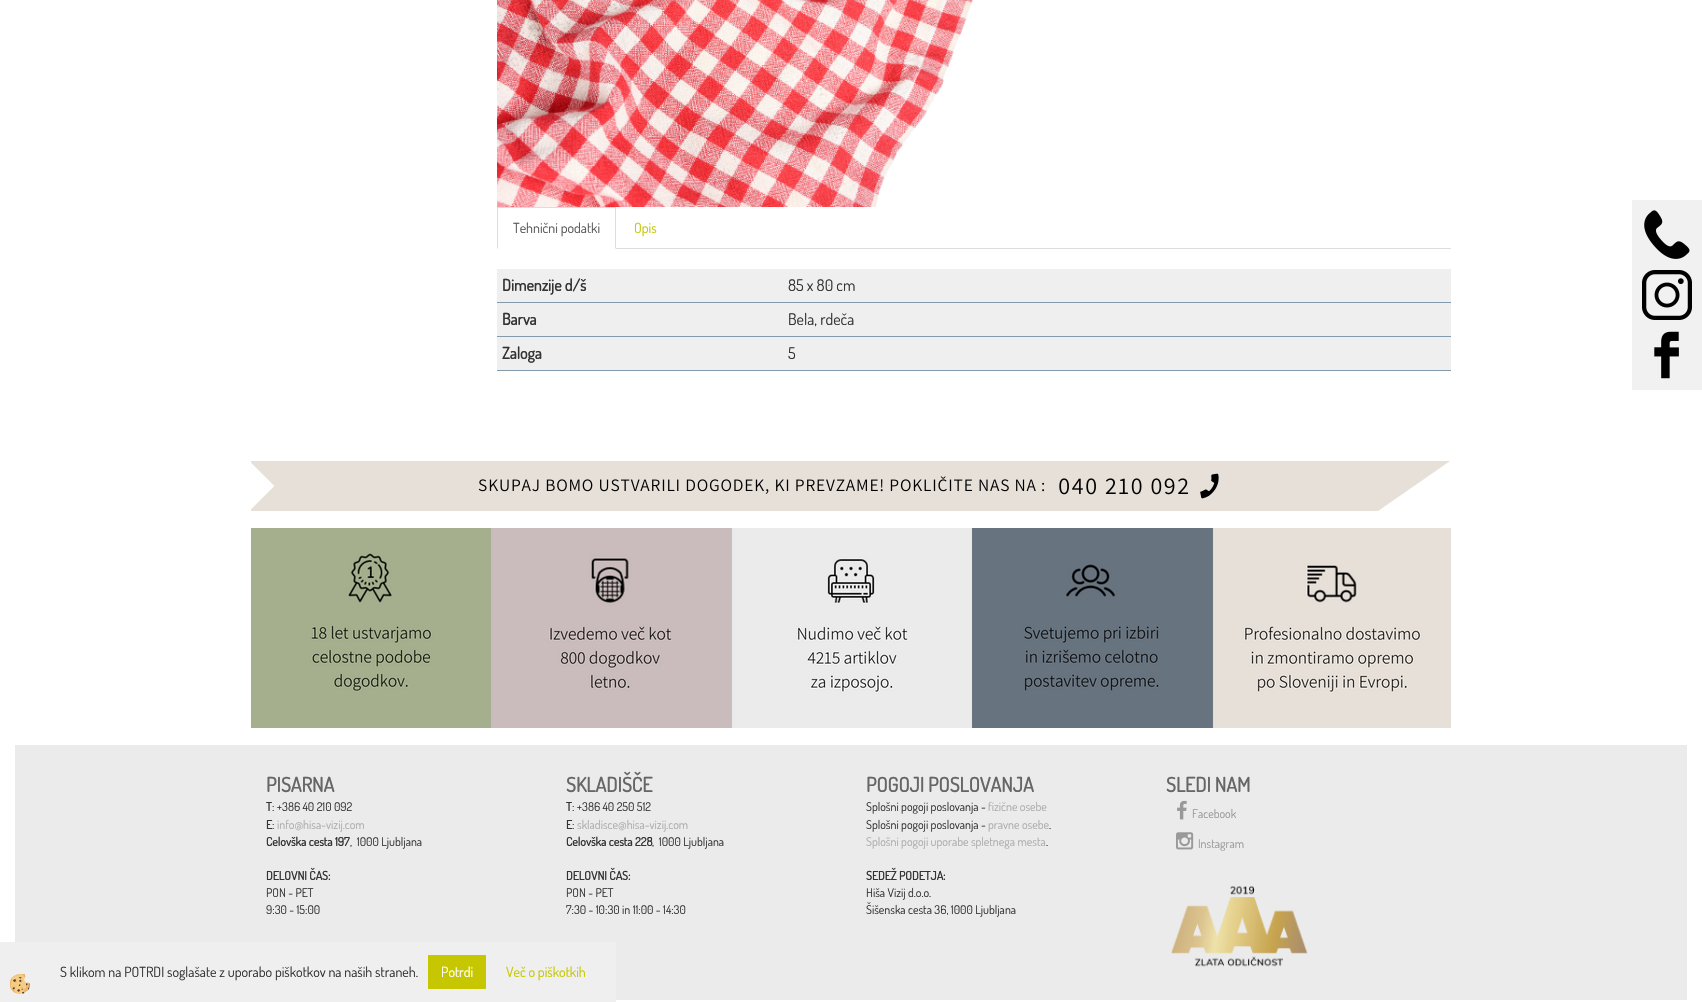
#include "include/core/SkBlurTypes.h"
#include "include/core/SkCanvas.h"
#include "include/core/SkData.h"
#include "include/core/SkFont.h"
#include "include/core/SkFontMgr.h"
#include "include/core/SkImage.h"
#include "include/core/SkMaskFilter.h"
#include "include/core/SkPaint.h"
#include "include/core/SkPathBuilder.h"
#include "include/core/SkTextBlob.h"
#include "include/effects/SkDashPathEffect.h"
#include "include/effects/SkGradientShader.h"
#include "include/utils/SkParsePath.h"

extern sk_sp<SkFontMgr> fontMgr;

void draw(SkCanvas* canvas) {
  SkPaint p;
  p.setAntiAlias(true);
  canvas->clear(SK_ColorWHITE);
  canvas->drawImageRect(SkImages::DeferredFromEncodedData(SkData::MakeFromFileName("images/1.png")), SkRect::MakeLTRB(497, 0, 973, 207), SkSamplingOptions());
  p.setColor(SkColorSetRGB(221, 221, 221));
  canvas->drawRect(SkRect::MakeLTRB(616, 248, 1451, 249), p);
  canvas->drawRect(SkRect::MakeLTRB(497, 207, 616, 208), p);
  canvas->drawPath(SkPathBuilder().moveTo(616, 207).lineTo(616, 249).lineTo(615, 248).lineTo(615, 208).close().detach(), p);
  canvas->drawPath(SkPathBuilder().moveTo(497, 249).lineTo(497, 207).lineTo(498, 208).lineTo(498, 248).close().detach(), p);
  p.setColor(SkColorSetRGB(239, 239, 239));
  canvas->drawRect(SkRect::MakeLTRB(497, 269, 1451, 370), p);
  p.setColor(SkColorSetRGB(132, 155, 174));
  canvas->drawRect(SkRect::MakeLTRB(497, 302, 1451, 303), p);
  canvas->drawRect(SkRect::MakeLTRB(497, 336, 1451, 337), p);
  canvas->drawRect(SkRect::MakeLTRB(497, 370, 1451, 371), p);
  canvas->drawImageRect(SkImages::DeferredFromEncodedData(SkData::MakeFromFileName("images/2.png")), SkRect::MakeLTRB(251, 461, 1450, 511), SkSamplingOptions());
  canvas->drawImageRect(SkImages::DeferredFromEncodedData(SkData::MakeFromFileName("images/3.png")), SkRect::MakeLTRB(251, 528, 1451, 728), SkSamplingOptions());
  p.setColor(SkColorSetRGB(235, 235, 235));
  canvas->drawRect(SkRect::MakeLTRB(15, 745, 1687, 1000), p);
  canvas->drawImageRect(SkImages::DeferredFromEncodedData(SkData::MakeFromFileName("images/4.png")), SkRect::MakeLTRB(1177, 800, 1187, 820), SkSamplingOptions());
  canvas->drawImageRect(SkImages::DeferredFromEncodedData(SkData::MakeFromFileName("images/5.png")), SkRect::MakeLTRB(1176, 832, 1194, 850), SkSamplingOptions());
  canvas->drawImageRect(SkImages::DeferredFromEncodedData(SkData::MakeFromFileName("images/6.png")), SkRect::MakeLTRB(1171, 886, 1308, 967), SkSamplingOptions());
  p.setColor(SkColorSetRGB(241, 241, 241));
  canvas->drawRect(SkRect::MakeLTRB(1632, 200, 1702, 390), p);
  canvas->drawImageRect(SkImages::DeferredFromEncodedData(SkData::MakeFromFileName("images/7.png")), SkRect::MakeLTRB(1644, 210, 1690, 259), SkSamplingOptions());
  canvas->drawImageRect(SkImages::DeferredFromEncodedData(SkData::MakeFromFileName("images/8.png")), SkRect::MakeLTRB(1642, 270, 1692, 320), SkSamplingOptions());
  canvas->drawImageRect(SkImages::DeferredFromEncodedData(SkData::MakeFromFileName("images/9.png")), SkRect::MakeLTRB(1654, 331, 1679, 379), SkSamplingOptions());
  p.setColor(SkColorSetRGB(239, 239, 239));
  canvas->drawRect(SkRect::MakeLTRB(0, 942, 616, 1002), p);
  canvas->drawImageRect(SkImages::DeferredFromEncodedData(SkData::MakeFromFileName("images/10.png")), SkRect::MakeLTRB(10, 974, 30, 994), SkSamplingOptions());
  p.setColor(SkColorSetRGB(198, 199, 0));
  canvas->drawRect(SkRect::MakeLTRB(428, 955, 486, 989), p);
  SkFont font1(fontMgr->matchFamilyStyle("Dosis", SkFontStyle::Normal()), 14);
  font1.setSubpixel(true);
  p.setColor(SkColorSetRGB(85, 85, 85));
  canvas->drawString("Tehnični podatki", 513, 233, font1, p);
  p.setColor(SkColorSetRGB(198, 199, 0));
  canvas->drawString("Opis", 634, 233, font1, p);
  SkFont font2(fontMgr->matchFamilyStyle("Dosis", SkFontStyle::Bold()), 16);
  font2.setSubpixel(true);
  p.setColor(SkColorSetRGB(51, 51, 51));
  canvas->drawString("Dimenzije d/š", 502, 291, font2, p);
  SkFont font3(fontMgr->matchFamilyStyle("Dosis", SkFontStyle::Normal()), 16);
  font3.setSubpixel(true);
  canvas->drawString("85 x 80 cm", 788, 291, font3, p);
  canvas->drawString("Barva", 502, 325, font2, p);
  canvas->drawString("Bela, rdeča", 788, 325, font3, p);
  canvas->drawString("Zaloga", 502, 359, font2, p);
  canvas->drawString("5", 788, 359, font3, p);
  SkFont font4(fontMgr->matchFamilyStyle("Dosis", SkFontStyle::Bold()), 20);
  font4.setSubpixel(true);
  p.setColor(SkColorSetRGB(102, 102, 102));
  canvas->drawString("PISARNA", 266, 792, font4, p);
  SkFont font5(fontMgr->matchFamilyStyle("Dosis", SkFontStyle::Bold()), 12);
  font5.setSubpixel(true);
  p.setColor(SkColorSetRGB(51, 51, 51));
  canvas->drawString("T", 266, 811, font5, p);
  SkFont font6(fontMgr->matchFamilyStyle("Dosis", SkFontStyle::Normal()), 12);
  font6.setSubpixel(true);
  canvas->drawString(": +386 40 210 092", 272, 811, font6, p);
  canvas->drawString("E", 266, 829, font5, p);
  canvas->drawString(":", 272, 829, font6, p);
  p.setColor(SkColorSetRGB(173, 172, 172));
  canvas->drawString("info@hisa-vizij.com", 277, 829, font6, p);
  p.setColor(SkColorSetRGB(51, 51, 51));
  canvas->drawString("Celovška cesta 197", 266, 846, font5, p);
  canvas->drawString(",  1000 Ljubljana", 350, 846, font6, p);
  canvas->drawString("DELOVNI ČAS:", 266, 880, font5, p);
  canvas->drawString("PON - PET", 266, 897, font6, p);
  canvas->drawString("9:30 - 15:00", 266, 914, font6, p);
  p.setColor(SkColorSetRGB(102, 102, 102));
  canvas->drawString("SKLADIŠČE", 566, 792, font4, p);
  p.setColor(SkColorSetRGB(51, 51, 51));
  canvas->drawString("T", 566, 811, font5, p);
  canvas->drawString(": +386 40 250 512", 572, 811, font6, p);
  canvas->drawString("E", 566, 829, font5, p);
  canvas->drawString(":", 572, 829, font6, p);
  p.setColor(SkColorSetRGB(173, 172, 172));
  canvas->drawString("skladisce@hisa-vizij.com", 577, 829, font6, p);
  p.setColor(SkColorSetRGB(51, 51, 51));
  canvas->drawString("Celovška cesta 228", 566, 846, font5, p);
  canvas->drawString(",  1000 Ljubljana", 652, 846, font6, p);
  canvas->drawString("DELOVNI ČAS:", 566, 880, font5, p);
  canvas->drawString("PON - PET", 566, 897, font6, p);
  canvas->drawString("7:30 - 10:30 in 11:00 - 14:30", 566, 914, font6, p);
  p.setColor(SkColorSetRGB(102, 102, 102));
  canvas->drawString("POGOJI POSLOVANJA", 866, 792, font4, p);
  p.setColor(SkColorSetRGB(51, 51, 51));
  canvas->drawString("Splošni pogoji poslovanja -", 866, 811, font6, p);
  p.setColor(SkColorSetRGB(173, 172, 172));
  canvas->drawString("fizične osebe", 988, 811, font6, p);
  p.setColor(SkColorSetRGB(51, 51, 51));
  canvas->drawString("Splošni pogoji poslovanja -", 866, 829, font6, p);
  p.setColor(SkColorSetRGB(173, 172, 172));
  canvas->drawString("pravne osebe", 988, 829, font6, p);
  p.setColor(SkColorSetRGB(51, 51, 51));
  canvas->drawString(".", 1049, 829, font6, p);
  p.setColor(SkColorSetRGB(173, 172, 172));
  canvas->drawString("Splošni pogoji uporabe spletnega mesta", 866, 846, font6, p);
  p.setColor(SkColorSetRGB(51, 51, 51));
  canvas->drawString(".", 1046, 846, font6, p);
  canvas->drawString("SEDEŽ PODETJA:", 866, 880, font5, p);
  canvas->drawString("Hiša Vizij d.o.o.", 866, 897, font6, p);
  canvas->drawString("Šišenska cesta 36, 1000 Ljubljana", 866, 914, font6, p);
  p.setColor(SkColorSetRGB(102, 102, 102));
  canvas->drawString("SLEDI NAM", 1166, 792, font4, p);
  p.setColor(SkColorSetRGB(153, 153, 153));
  canvas->drawString("Facebook", 1192, 818, font6, p);
  canvas->drawString("Instagram", 1198, 848, font6, p);
  p.setColor(SkColorSetRGB(51, 51, 51));
  canvas->drawString("S klikom na POTRDI soglašate z uporabo piškotkov na naših straneh.", 60, 977, font1, p);
  p.setColor(SK_ColorWHITE);
  canvas->drawString("Potrdi", 441, 977, font1, p);
  p.setColor(SkColorSetRGB(198, 199, 0));
  canvas->drawString("Več o piškotkih", 506, 977, font1, p);
}
